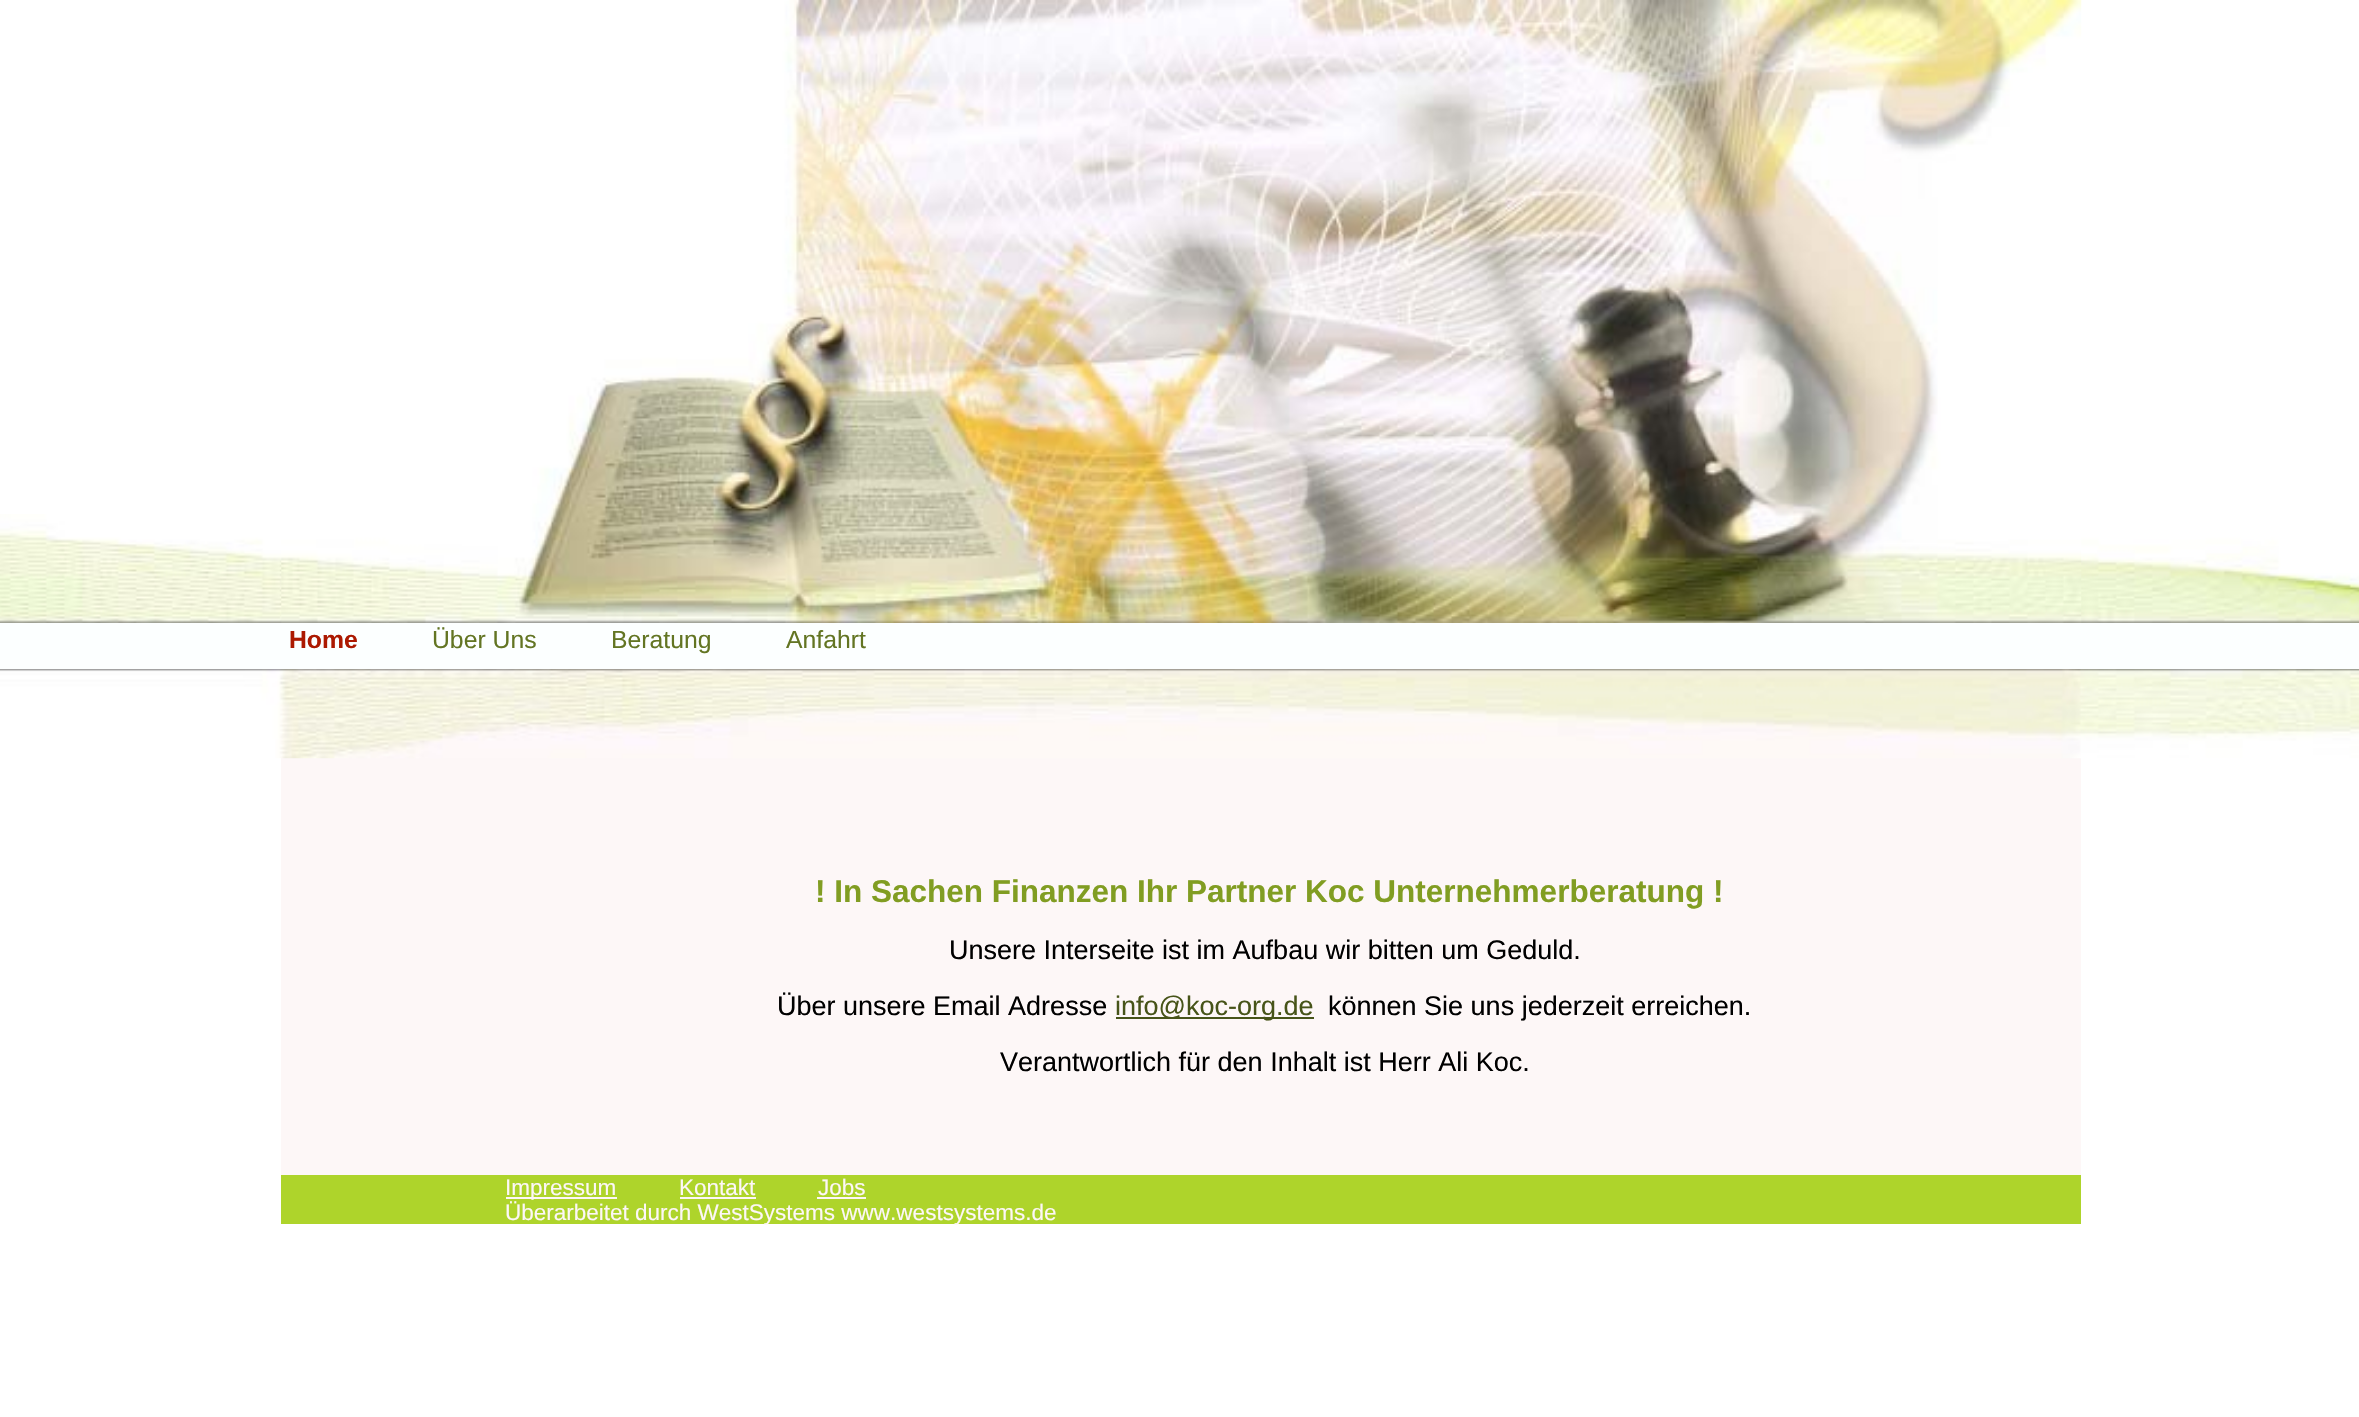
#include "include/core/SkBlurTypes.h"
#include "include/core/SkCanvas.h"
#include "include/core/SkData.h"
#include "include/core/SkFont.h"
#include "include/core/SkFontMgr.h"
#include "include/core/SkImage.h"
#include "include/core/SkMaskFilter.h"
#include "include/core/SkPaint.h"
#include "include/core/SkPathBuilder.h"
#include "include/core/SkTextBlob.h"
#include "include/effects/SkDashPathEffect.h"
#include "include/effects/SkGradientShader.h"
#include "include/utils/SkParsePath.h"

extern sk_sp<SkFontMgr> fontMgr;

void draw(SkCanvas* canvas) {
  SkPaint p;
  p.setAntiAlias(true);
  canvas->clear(SK_ColorWHITE);
  canvas->drawImageRect(SkImages::DeferredFromEncodedData(SkData::MakeFromFileName("images/1.png")), SkRect::MakeLTRB(0, 514, 2359, 623), SkSamplingOptions());
  canvas->drawImageRect(SkImages::DeferredFromEncodedData(SkData::MakeFromFileName("images/2.png")), SkRect::MakeLTRB(281, 0, 2082, 623), SkSamplingOptions());
  p.setColor(SkColorSetRGB(252, 255, 255));
  canvas->drawRect(SkRect::MakeLTRB(0, 623, 2359, 669), p);
  p.setColor(SkColorSetRGB(253, 247, 247));
  canvas->drawRect(SkRect::MakeLTRB(281, 758, 2081, 1175), p);
  canvas->drawImageRect(SkImages::DeferredFromEncodedData(SkData::MakeFromFileName("images/3.png")), SkRect::MakeLTRB(0, 669, 2359, 759), SkSamplingOptions());
  p.setColor(SkColorSetRGB(71, 84, 25));
  canvas->drawRect(SkRect::MakeLTRB(1116, 1017, 1314, 1019), p);
  p.setColor(SkColorSetRGB(174, 212, 43));
  canvas->drawRect(SkRect::MakeLTRB(281, 1175, 2081, 1224), p);
  p.setColor(SkColorSetRGB(253, 247, 247));
  canvas->drawRect(SkRect::MakeLTRB(506, 1197, 617, 1199), p);
  canvas->drawRect(SkRect::MakeLTRB(680, 1197, 756, 1199), p);
  canvas->drawRect(SkRect::MakeLTRB(817, 1197, 866, 1199), p);
  SkFont font1(fontMgr->matchFamilyStyle("Liberation Sans", SkFontStyle::Bold()), 24.75f);
  font1.setSubpixel(true);
  p.setColor(SkColorSetRGB(172, 25, 1));
  canvas->drawString("Home", 289, 648, font1, p);
  SkFont font2(fontMgr->matchFamilyStyle("Liberation Sans", SkFontStyle::Normal()), 24.75f);
  font2.setSubpixel(true);
  p.setColor(SkColorSetRGB(99, 117, 35));
  canvas->drawString("Über Uns", 432, 648, font2, p);
  canvas->drawString("Beratung", 611, 648, font2, p);
  canvas->drawString("Anfahrt", 786, 648, font2, p);
  SkFont font3(fontMgr->matchFamilyStyle("Liberation Sans", SkFontStyle::Bold()), 31.5f);
  font3.setSubpixel(true);
  p.setColor(SkColorSetRGB(129, 157, 34));
  canvas->drawString("! In Sachen Finanzen Ihr Partner Koc Unternehmerberatung !", 815, 902, font3, p);
  SkFont font4(fontMgr->matchFamilyStyle("Liberation Sans", SkFontStyle::Normal()), 27);
  font4.setSubpixel(true);
  p.setColor(SK_ColorBLACK);
  canvas->drawString("Unsere Interseite ist im Aufbau wir bitten um Geduld.", 949, 959, font4, p);
  canvas->drawString("Über unsere Email Adresse", 777, 1015, font4, p);
  p.setColor(SkColorSetRGB(71, 84, 25));
  canvas->drawString("info@koc-org.de", 1115, 1015, font4, p);
  p.setColor(SK_ColorBLACK);
  canvas->drawString("können Sie uns jederzeit erreichen.", 1328, 1015, font4, p);
  canvas->drawString("Verantwortlich für den Inhalt ist Herr Ali Koc.", 1000, 1071, font4, p);
  SkFont font5(fontMgr->matchFamilyStyle("Liberation Sans", SkFontStyle::Normal()), 22.5f);
  font5.setSubpixel(true);
  p.setColor(SkColorSetRGB(253, 247, 247));
  canvas->drawString("Impressum", 505, 1195, font5, p);
  canvas->drawString("Kontakt", 679, 1195, font5, p);
  canvas->drawString("Jobs", 818, 1195, font5, p);
  canvas->drawString("Überarbeitet durch WestSystems www.westsystems.de", 505, 1220, font5, p);
}
